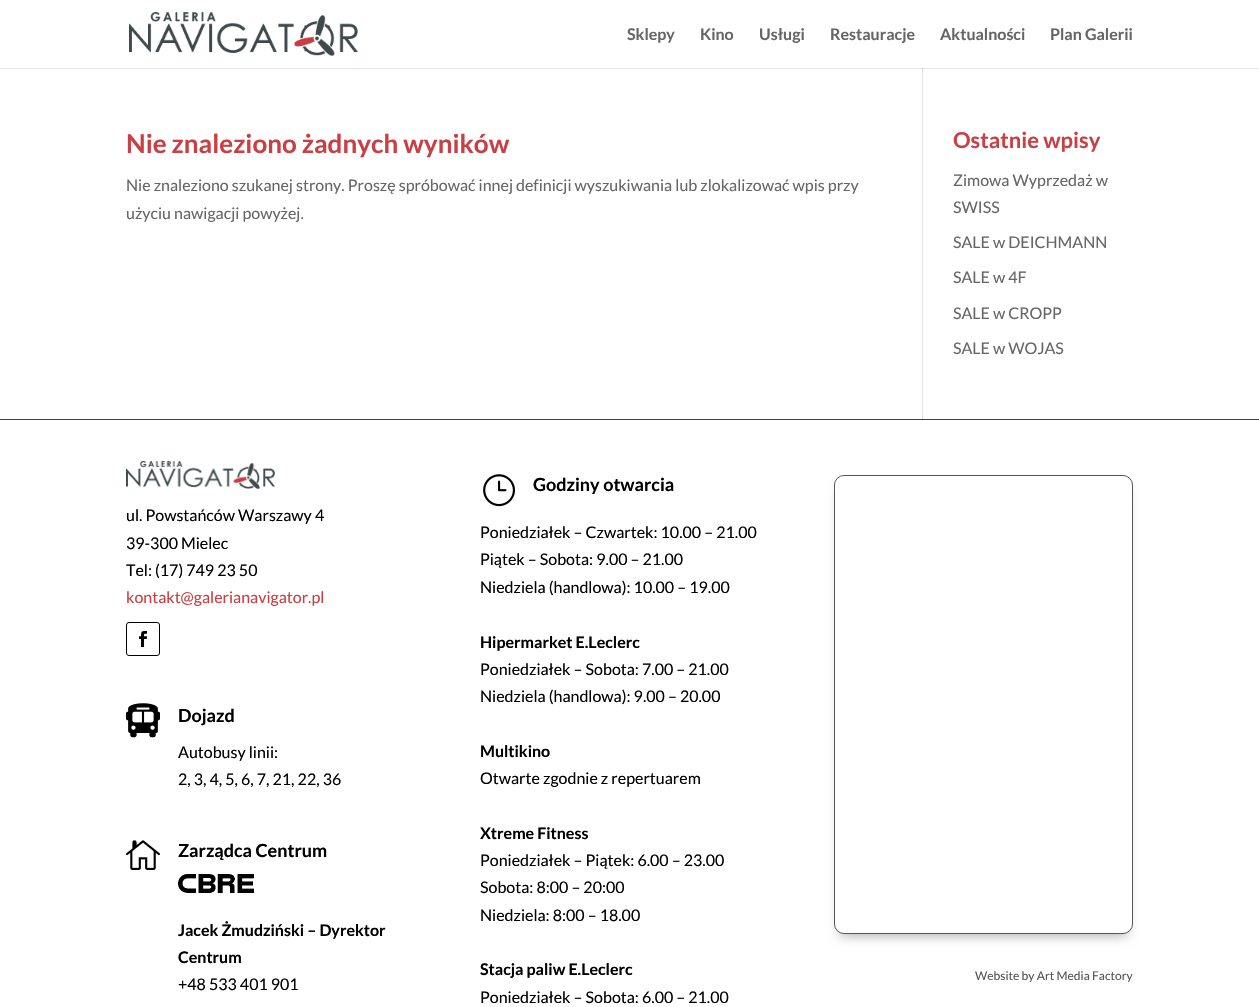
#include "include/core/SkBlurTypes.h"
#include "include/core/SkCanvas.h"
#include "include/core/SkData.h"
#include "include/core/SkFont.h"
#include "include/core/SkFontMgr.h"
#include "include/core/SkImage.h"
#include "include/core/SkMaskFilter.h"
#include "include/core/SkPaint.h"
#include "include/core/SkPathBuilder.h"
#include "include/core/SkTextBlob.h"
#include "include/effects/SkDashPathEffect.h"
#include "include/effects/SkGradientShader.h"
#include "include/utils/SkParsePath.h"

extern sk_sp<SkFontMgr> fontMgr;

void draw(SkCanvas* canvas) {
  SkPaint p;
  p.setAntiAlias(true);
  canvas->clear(SK_ColorWHITE);
  p.setColor(SkColorSetRGB(230, 230, 230));
  canvas->drawRect(SkRect::MakeLTRB(0, 68, 1259, 69), p);
  p.setColor(SkColorSetRGB(226, 226, 226));
  canvas->drawRect(SkRect::MakeLTRB(922, 67, 923, 419), p);
  p.setColor(SK_ColorWHITE);
  canvas->drawRect(SkRect::MakeLTRB(922, 67, 923, 68), p);
  canvas->drawImageRect(SkImages::DeferredFromEncodedData(SkData::MakeFromFileName("images/1.png")), SkRect::MakeLTRB(129, 12, 358, 56), SkSamplingOptions());
  p.setColor(SkColorSetRGB(203, 203, 203));
  canvas->drawRect(SkRect::MakeLTRB(922, 68, 923, 69), p);
  p.setColor(SkColorSetRGB(63, 63, 63));
  canvas->drawRect(SkRect::MakeLTRB(0, 419, 1259, 420), p);
  canvas->drawImageRect(SkImages::DeferredFromEncodedData(SkData::MakeFromFileName("images/2.png")), SkRect::MakeLTRB(126, 461, 275, 489), SkSamplingOptions());
  p.setStyle(SkPaint::kStroke_Style);
  p.setStrokeWidth(1);
  p.setColor(SK_ColorBLACK);
  canvas->drawRoundRect(SkRect::MakeLTRB(126.5f, 622.5f, 159.5f, 655.5f), 2.5f, 2.5f, p);
  canvas->drawImageRect(SkImages::DeferredFromEncodedData(SkData::MakeFromFileName("images/3.png")), SkRect::MakeLTRB(139, 631, 147, 647), SkSamplingOptions());
  canvas->drawImageRect(SkImages::DeferredFromEncodedData(SkData::MakeFromFileName("images/4.png")), SkRect::MakeLTRB(126, 703, 160, 738), SkSamplingOptions());
  canvas->drawImageRect(SkImages::DeferredFromEncodedData(SkData::MakeFromFileName("images/5.png")), SkRect::MakeLTRB(126, 840, 160, 870), SkSamplingOptions());
  canvas->drawImageRect(SkImages::DeferredFromEncodedData(SkData::MakeFromFileName("images/6.png")), SkRect::MakeLTRB(178, 874, 254, 893), SkSamplingOptions());
  canvas->drawImageRect(SkImages::DeferredFromEncodedData(SkData::MakeFromFileName("images/7.png")), SkRect::MakeLTRB(483, 474, 515, 507), SkSamplingOptions());
  p.setStyle(SkPaint::kFill_Style);
  p.setColor(SkColorSetARGB(77, 0, 0, 0));
  p.setMaskFilter(SkMaskFilter::MakeBlur(kNormal_SkBlurStyle, 6));
  canvas->drawRoundRect(SkRect::MakeLTRB(840, 489, 1127, 936), 4, 4, p);
  p.setMaskFilter(nullptr);
  p.setColor(SK_ColorWHITE);
  canvas->drawRoundRect(SkRect::MakeLTRB(834.5f, 475.5f, 1132.5f, 933.5f), 9.5f, 9.5f, p);
  p.setStyle(SkPaint::kStroke_Style);
  p.setColor(SkColorSetRGB(85, 85, 85));
  canvas->drawRoundRect(SkRect::MakeLTRB(834.5f, 475.5f, 1132.5f, 933.5f), 9.5f, 9.5f, p);
  SkFont font1(fontMgr->matchFamilyStyle("Lato", SkFontStyle::Bold()), 16);
  font1.setSubpixel(true);
  p.setStyle(SkPaint::kFill_Style);
  p.setColor(SkColorSetRGB(102, 102, 102));
  canvas->drawString("Sklepy", 627, 40, font1, p);
  canvas->drawString("Kino", 700, 40, font1, p);
  canvas->drawString("Usługi", 759, 40, font1, p);
  canvas->drawString("Restauracje", 830, 40, font1, p);
  canvas->drawString("Aktualności", 940, 40, font1, p);
  canvas->drawString("Plan Galerii", 1050, 40, font1, p);
  SkFont font2(fontMgr->matchFamilyStyle("Lato", SkFontStyle::Bold()), 26);
  font2.setSubpixel(true);
  p.setColor(SkColorSetRGB(201, 63, 67));
  canvas->drawString("Nie znaleziono żadnych wyników", 126, 153, font2, p);
  SkFont font3(fontMgr->matchFamilyStyle("Lato", SkFontStyle::Normal()), 16);
  font3.setSubpixel(true);
  p.setColor(SkColorSetRGB(102, 102, 102));
  canvas->drawString("Nie znaleziono szukanej strony. Proszę spróbować innej definicji wyszukiwania lub zlokalizować wpis przy", 126, 191, font3, p);
  canvas->drawString("użyciu nawigacji powyżej.", 126, 219, font3, p);
  SkFont font4(fontMgr->matchFamilyStyle("Lato", SkFontStyle::Bold()), 22);
  font4.setSubpixel(true);
  p.setColor(SkColorSetRGB(201, 63, 67));
  canvas->drawString("Ostatnie wpisy", 953, 148, font4, p);
  p.setColor(SkColorSetRGB(102, 102, 102));
  canvas->drawString("Zimowa Wyprzedaż w", 953, 186, font3, p);
  canvas->drawString("SWISS", 953, 213, font3, p);
  canvas->drawString("SALE w DEICHMANN", 953, 248, font3, p);
  canvas->drawString("SALE w 4F", 953, 283, font3, p);
  canvas->drawString("SALE w CROPP", 953, 319, font3, p);
  canvas->drawString("SALE w WOJAS", 953, 354, font3, p);
  p.setColor(SK_ColorBLACK);
  canvas->drawString("ul. Powstańców Warszawy 4", 126, 521, font3, p);
  canvas->drawString("39-300 Mielec", 126, 549, font3, p);
  canvas->drawString("Tel: (17) 749 23 50", 126, 576, font3, p);
  p.setColor(SkColorSetRGB(201, 63, 67));
  canvas->drawString("kontakt@galerianavigator.pl", 126, 603, font3, p);
  SkFont font5(fontMgr->matchFamilyStyle("Lato", SkFontStyle::Bold()), 18);
  font5.setSubpixel(true);
  p.setColor(SK_ColorBLACK);
  canvas->drawString("Dojazd", 178, 722, font5, p);
  canvas->drawString("Autobusy linii:", 178, 758, font3, p);
  canvas->drawString("2, 3, 4, 5, 6, 7, 21, 22, 36", 178, 785, font3, p);
  canvas->drawString("Zarządca Centrum", 178, 857, font5, p);
  canvas->drawString("Jacek Żmudziński – Dyrektor", 178, 936, font1, p);
  canvas->drawString("Centrum", 178, 963, font1, p);
  canvas->drawString("+48 533 401 901", 178, 990, font3, p);
  canvas->drawString("Godziny otwarcia", 533, 491, font5, p);
  canvas->drawString("Poniedziałek – Czwartek: 10.00 – 21.00", 480, 538, font3, p);
  canvas->drawString("Piątek – Sobota: 9.00 – 21.00", 480, 565, font3, p);
  canvas->drawString("Niedziela (handlowa): 10.00 – 19.00", 480, 593, font3, p);
  canvas->drawString("Hipermarket E.Leclerc", 480, 648, font1, p);
  canvas->drawString("Poniedziałek – Sobota: 7.00 – 21.00", 480, 675, font3, p);
  canvas->drawString("Niedziela (handlowa): 9.00 – 20.00", 480, 702, font3, p);
  canvas->drawString("Multikino", 480, 757, font1, p);
  canvas->drawString("Otwarte zgodnie z repertuarem", 480, 784, font3, p);
  canvas->drawString("Xtreme Fitness", 480, 839, font1, p);
  canvas->drawString("Poniedziałek – Piątek: 6.00 – 23.00", 480, 866, font3, p);
  canvas->drawString("Sobota: 8:00 – 20:00", 480, 893, font3, p);
  canvas->drawString("Niedziela: 8:00 – 18.00", 480, 921, font3, p);
  canvas->drawString("Stacja paliw E.Leclerc", 480, 975, font1, p);
  canvas->drawString("Poniedziałek – Sobota: 6.00 – 21.00", 480, 1003, font3, p);
  SkFont font6(fontMgr->matchFamilyStyle("Lato", SkFontStyle::Normal()), 12);
  font6.setSubpixel(true);
  p.setColor(SkColorSetRGB(85, 85, 85));
  canvas->drawString("Website by Art Media Factory", 975, 980, font6, p);
}
